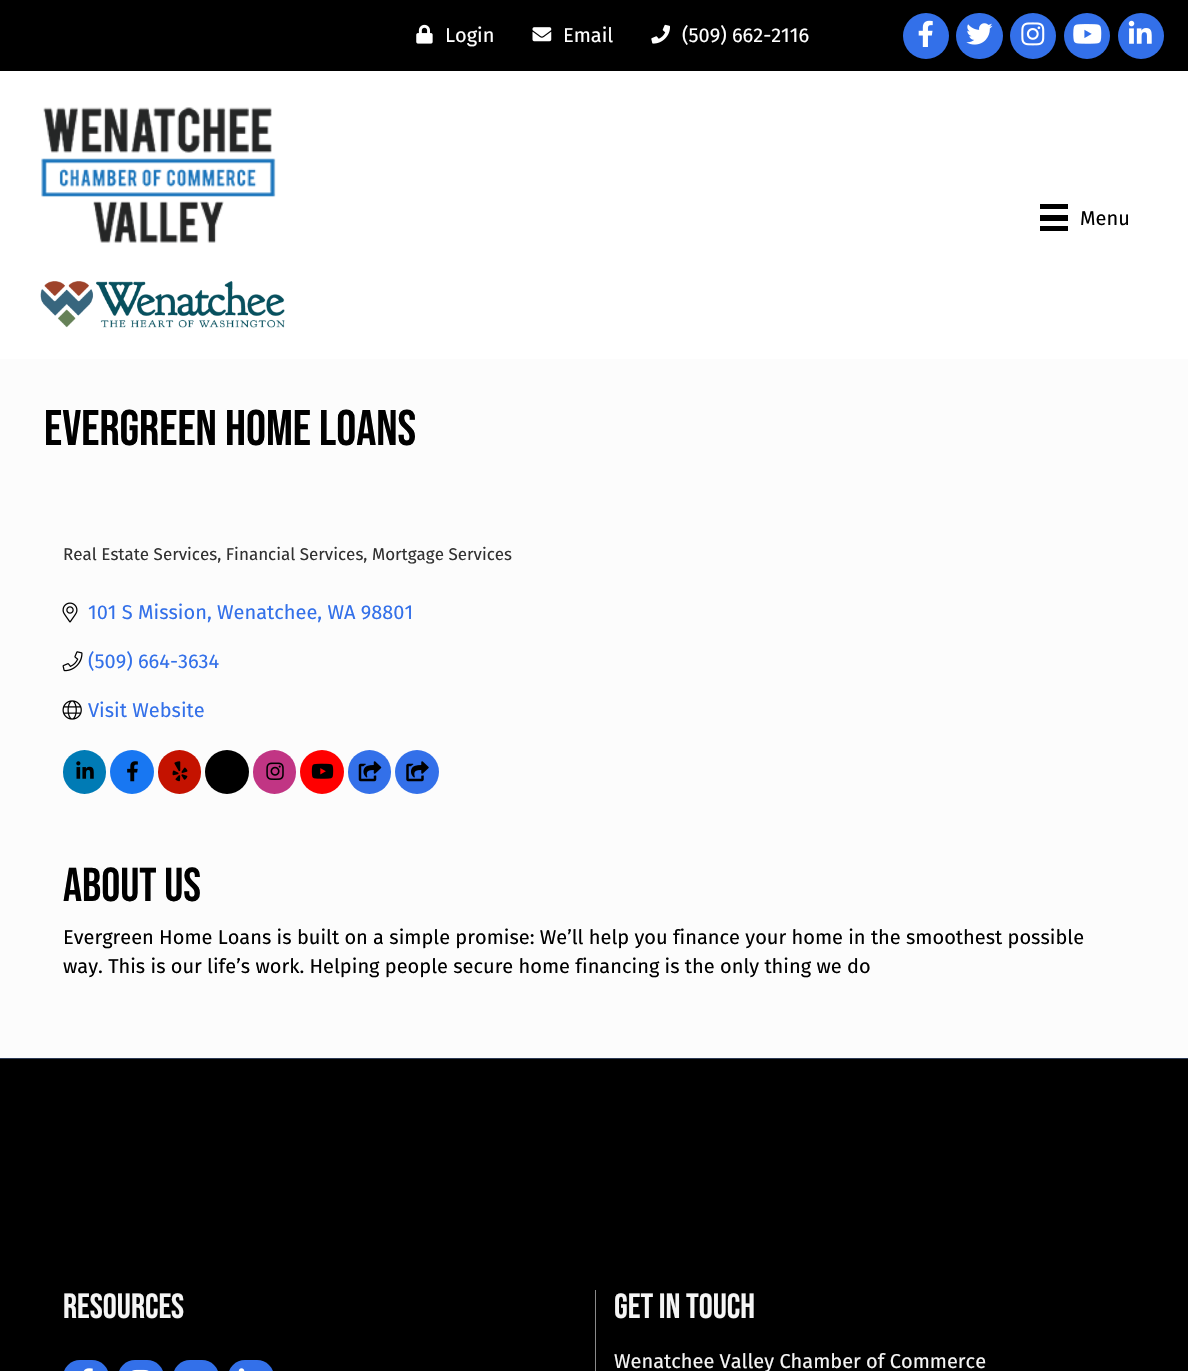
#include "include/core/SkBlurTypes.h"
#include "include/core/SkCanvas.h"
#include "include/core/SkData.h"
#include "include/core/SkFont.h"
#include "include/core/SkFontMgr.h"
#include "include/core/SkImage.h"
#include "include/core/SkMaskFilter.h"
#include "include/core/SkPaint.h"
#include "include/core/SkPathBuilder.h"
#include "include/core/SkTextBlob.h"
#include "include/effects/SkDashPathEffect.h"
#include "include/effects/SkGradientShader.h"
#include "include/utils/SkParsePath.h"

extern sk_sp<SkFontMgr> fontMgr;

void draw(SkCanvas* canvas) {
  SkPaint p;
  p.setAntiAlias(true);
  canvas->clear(SK_ColorWHITE);
  p.setColor(SK_ColorBLACK);
  canvas->drawRect(SkRect::MakeLTRB(0, 0, 1188, 71), p);
  canvas->drawImageRect(SkImages::DeferredFromEncodedData(SkData::MakeFromFileName("images/1.png")), SkRect::MakeLTRB(416, 24, 433, 44), SkSamplingOptions());
  canvas->drawImageRect(SkImages::DeferredFromEncodedData(SkData::MakeFromFileName("images/2.png")), SkRect::MakeLTRB(532, 27, 552, 42), SkSamplingOptions());
  canvas->drawImageRect(SkImages::DeferredFromEncodedData(SkData::MakeFromFileName("images/3.png")), SkRect::MakeLTRB(651, 24, 670, 44), SkSamplingOptions());
  p.setColor(SkColorSetRGB(51, 112, 233));
  canvas->drawCircle(926, 36, 23, p);
  canvas->drawImageRect(SkImages::DeferredFromEncodedData(SkData::MakeFromFileName("images/4.png")), SkRect::MakeLTRB(918, 20, 933, 47), SkSamplingOptions());
  canvas->drawRoundRect(SkRect::MakeLTRB(956, 13, 1003, 59), 23, 23, p);
  canvas->drawImageRect(SkImages::DeferredFromEncodedData(SkData::MakeFromFileName("images/5.png")), SkRect::MakeLTRB(966, 23, 993, 45), SkSamplingOptions());
  canvas->drawCircle(1033, 36, 23, p);
  canvas->drawImageRect(SkImages::DeferredFromEncodedData(SkData::MakeFromFileName("images/6.png")), SkRect::MakeLTRB(1021, 22, 1045, 46), SkSamplingOptions());
  canvas->drawCircle(1087, 36, 23, p);
  canvas->drawImageRect(SkImages::DeferredFromEncodedData(SkData::MakeFromFileName("images/7.png")), SkRect::MakeLTRB(1073, 24, 1102, 44), SkSamplingOptions());
  canvas->drawCircle(1141, 36, 23, p);
  canvas->drawImageRect(SkImages::DeferredFromEncodedData(SkData::MakeFromFileName("images/8.png")), SkRect::MakeLTRB(1128, 20, 1152, 44), SkSamplingOptions());
  canvas->drawImageRect(SkImages::DeferredFromEncodedData(SkData::MakeFromFileName("images/9.png")), SkRect::MakeLTRB(41, 107, 276, 243), SkSamplingOptions());
  canvas->drawImageRect(SkImages::DeferredFromEncodedData(SkData::MakeFromFileName("images/10.png")), SkRect::MakeLTRB(40, 281, 285, 328), SkSamplingOptions());
  p.setColor(SK_ColorBLACK);
  canvas->drawRect(SkRect::MakeLTRB(1040, 204, 1068, 209), p);
  canvas->drawRect(SkRect::MakeLTRB(1040, 215, 1068, 221), p);
  canvas->drawRect(SkRect::MakeLTRB(1040, 226, 1068, 231), p);
  p.setColor(SkColorSetRGB(252, 252, 252));
  canvas->drawRect(SkRect::MakeLTRB(0, 359, 1188, 1058), p);
  canvas->drawImageRect(SkImages::DeferredFromEncodedData(SkData::MakeFromFileName("images/11.png")), SkRect::MakeLTRB(62, 602, 78, 623), SkSamplingOptions());
  canvas->drawImageRect(SkImages::DeferredFromEncodedData(SkData::MakeFromFileName("images/12.png")), SkRect::MakeLTRB(62, 651, 83, 672), SkSamplingOptions());
  canvas->drawImageRect(SkImages::DeferredFromEncodedData(SkData::MakeFromFileName("images/13.png")), SkRect::MakeLTRB(62, 700, 82, 720), SkSamplingOptions());
  p.setColor(SkColorSetRGB(0, 123, 181));
  canvas->drawRoundRect(SkRect::MakeLTRB(63, 750, 106, 794), 21.5f, 21.5f, p);
  canvas->drawImageRect(SkImages::DeferredFromEncodedData(SkData::MakeFromFileName("images/14.png")), SkRect::MakeLTRB(76, 761, 94, 779), SkSamplingOptions());
  p.setColor(SkColorSetRGB(24, 119, 242));
  canvas->drawCircle(132, 772, 22, p);
  canvas->drawImageRect(SkImages::DeferredFromEncodedData(SkData::MakeFromFileName("images/15.png")), SkRect::MakeLTRB(127, 761, 138, 782), SkSamplingOptions());
  p.setColor(SkColorSetRGB(196, 18, 0));
  canvas->drawRoundRect(SkRect::MakeLTRB(158, 750, 201, 794), 21.5f, 21.5f, p);
  canvas->drawImageRect(SkImages::DeferredFromEncodedData(SkData::MakeFromFileName("images/16.png")), SkRect::MakeLTRB(172, 761, 188, 782), SkSamplingOptions());
  p.setColor(SK_ColorBLACK);
  canvas->drawCircle(227, 772, 22, p);
  p.setColor(SkColorSetRGB(193, 53, 132));
  canvas->drawRoundRect(SkRect::MakeLTRB(253, 750, 296, 794), 21.5f, 21.5f, p);
  canvas->drawImageRect(SkImages::DeferredFromEncodedData(SkData::MakeFromFileName("images/17.png")), SkRect::MakeLTRB(266, 762, 284, 780), SkSamplingOptions());
  p.setColor(SkColorSetRGB(255, 0, 0));
  canvas->drawCircle(322, 772, 22, p);
  canvas->drawImageRect(SkImages::DeferredFromEncodedData(SkData::MakeFromFileName("images/18.png")), SkRect::MakeLTRB(311, 763, 334, 779), SkSamplingOptions());
  p.setColor(SkColorSetRGB(51, 112, 233));
  canvas->drawRoundRect(SkRect::MakeLTRB(348, 750, 391, 794), 21.5f, 21.5f, p);
  canvas->drawImageRect(SkImages::DeferredFromEncodedData(SkData::MakeFromFileName("images/19.png")), SkRect::MakeLTRB(358, 761, 382, 782), SkSamplingOptions());
  canvas->drawCircle(417, 772, 22, p);
  canvas->drawImageRect(SkImages::DeferredFromEncodedData(SkData::MakeFromFileName("images/20.png")), SkRect::MakeLTRB(406, 761, 429, 782), SkSamplingOptions());
  p.setColor(SK_ColorBLACK);
  canvas->drawRect(SkRect::MakeLTRB(0, 1059, 1188, 1371), p);
  p.setColor(SkColorSetRGB(44, 58, 86));
  canvas->drawRect(SkRect::MakeLTRB(0, 1058, 1188, 1059), p);
  p.setColor(SkColorSetRGB(51, 112, 233));
  canvas->drawRoundRect(SkRect::MakeLTRB(63, 1360, 109, 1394), 22.5f, 22.5f, p);
  canvas->drawImageRect(SkImages::DeferredFromEncodedData(SkData::MakeFromFileName("images/21.png")), SkRect::MakeLTRB(83, 1368, 93, 1371), SkSamplingOptions());
  canvas->drawRoundRect(SkRect::MakeLTRB(118, 1360, 164, 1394), 22.5f, 22.5f, p);
  canvas->drawImageRect(SkImages::DeferredFromEncodedData(SkData::MakeFromFileName("images/22.png")), SkRect::MakeLTRB(132, 1369, 149, 1371), SkSamplingOptions());
  canvas->drawRoundRect(SkRect::MakeLTRB(173, 1360, 219, 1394), 22.5f, 22.5f, p);
  canvas->drawRoundRect(SkRect::MakeLTRB(228, 1360, 274, 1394), 22.5f, 22.5f, p);
  canvas->drawImageRect(SkImages::DeferredFromEncodedData(SkData::MakeFromFileName("images/23.png")), SkRect::MakeLTRB(238, 1368, 245, 1371), SkSamplingOptions());
  p.setColor(SkColorSetRGB(138, 138, 138));
  canvas->drawRect(SkRect::MakeLTRB(595, 1290, 596, 1371), p);
  SkFont font1(fontMgr->matchFamilyStyle("Fira Sans", SkFontStyle::Normal()), 20);
  font1.setSubpixel(true);
  p.setColor(SK_ColorWHITE);
  canvas->drawString("Login", 445, 42, font1, p);
  canvas->drawString("Email", 563, 42, font1, p);
  canvas->drawString("(509) 662-2116", 682, 42, font1, p);
  p.setColor(SK_ColorBLACK);
  canvas->drawString("Menu", 1080, 225, font1, p);
  SkFont font2(fontMgr->matchFamilyStyle("Bebas Neue", SkFontStyle::Normal()), 50);
  font2.setSubpixel(true);
  canvas->drawString("Evergreen Home Loans", 44, 445, font2, p);
  SkFont font3(fontMgr->matchFamilyStyle("Fira Sans", SkFontStyle::Normal()), 17);
  font3.setSubpixel(true);
  p.setColor(SkColorSetRGB(50, 50, 50));
  canvas->drawString("Real Estate Services, Financial Services, Mortgage Services", 63, 560, font3, p);
  p.setColor(SkColorSetRGB(51, 112, 233));
  canvas->drawString("101 S Mission, Wenatchee, WA 98801", 88, 619, font1, p);
  canvas->drawString("(509) 664-3634", 88, 668, font1, p);
  canvas->drawString("Visit Website", 88, 717, font1, p);
  SkFont font4(fontMgr->matchFamilyStyle("Bebas Neue", SkFontStyle::Normal()), 47.5f);
  font4.setSubpixel(true);
  p.setColor(SK_ColorBLACK);
  canvas->drawString("About Us", 63, 901, font4, p);
  canvas->drawString("Evergreen Home Loans is built on a simple promise: We’ll help you finance your home in the smoothest possible", 63, 944, font1, p);
  canvas->drawString("way. This is our life’s work. Helping people secure home financing is the only thing we do", 63, 973, font1, p);
  SkFont font5(fontMgr->matchFamilyStyle("Bebas Neue", SkFontStyle::Normal()), 35);
  font5.setSubpixel(true);
  p.setColor(SkColorSetRGB(245, 245, 245));
  canvas->drawString("Resources", 63, 1318, font5, p);
  canvas->drawString("Get in touch", 614, 1318, font5, p);
  canvas->drawString("Wenatchee Valley Chamber of Commerce", 614, 1368, font1, p);
}
